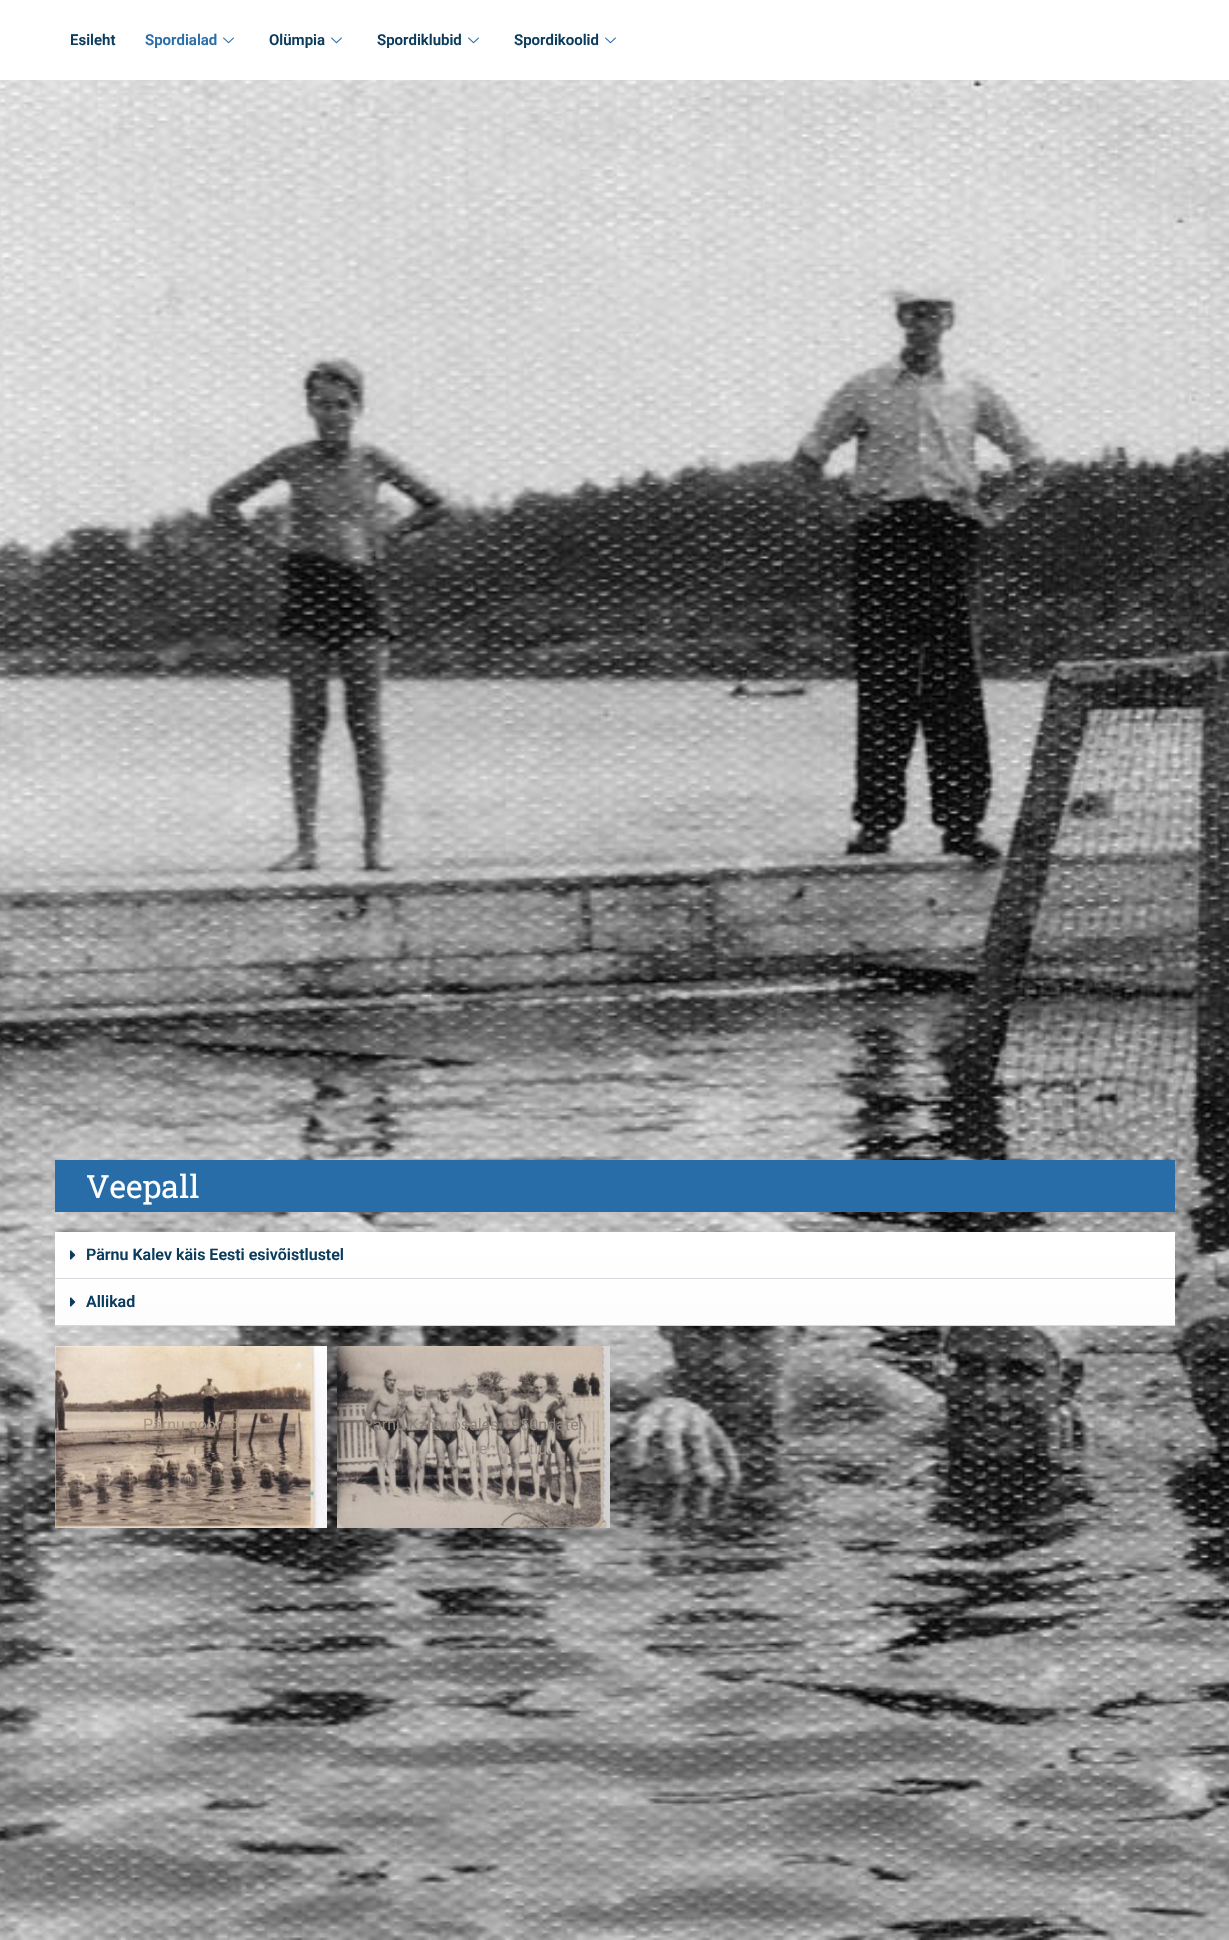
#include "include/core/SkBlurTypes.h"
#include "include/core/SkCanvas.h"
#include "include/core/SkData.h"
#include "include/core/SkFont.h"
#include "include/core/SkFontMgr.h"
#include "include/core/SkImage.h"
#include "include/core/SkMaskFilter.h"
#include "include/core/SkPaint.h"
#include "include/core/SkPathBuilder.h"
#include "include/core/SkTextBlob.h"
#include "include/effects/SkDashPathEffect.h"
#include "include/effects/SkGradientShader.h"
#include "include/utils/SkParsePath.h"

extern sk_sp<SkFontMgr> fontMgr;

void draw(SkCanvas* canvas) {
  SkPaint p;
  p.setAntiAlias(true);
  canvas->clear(SK_ColorWHITE);
  canvas->drawImageRect(SkImages::DeferredFromEncodedData(SkData::MakeFromFileName("images/1.png")), SkRect::MakeLTRB(223, 37, 234, 44), SkSamplingOptions());
  canvas->drawImageRect(SkImages::DeferredFromEncodedData(SkData::MakeFromFileName("images/1.png")), SkRect::MakeLTRB(331, 37, 342, 44), SkSamplingOptions());
  canvas->drawImageRect(SkImages::DeferredFromEncodedData(SkData::MakeFromFileName("images/1.png")), SkRect::MakeLTRB(468, 37, 479, 44), SkSamplingOptions());
  canvas->drawImageRect(SkImages::DeferredFromEncodedData(SkData::MakeFromFileName("images/1.png")), SkRect::MakeLTRB(605, 37, 616, 44), SkSamplingOptions());
  canvas->drawImageRect(SkImages::DeferredFromEncodedData(SkData::MakeFromFileName("images/2.png")), SkRect::MakeLTRB(0, 80, 1229, 1940), SkSamplingOptions());
  p.setColor(SkColorSetRGB(40, 109, 168));
  canvas->drawRect(SkRect::MakeLTRB(55, 1160, 1175, 1212), p);
  {
    const SkColor colors[] = {SK_ColorWHITE, SkColorSetRGB(253, 253, 253)};
    const float stops[] = {0, 1};
    const SkPoint ends[] = {{615, 1232}, {615, 1326}};
    p.setShader(SkGradientShader::MakeLinear(ends, colors, stops, 2, SkTileMode::kClamp));
    p.setAlpha(255);
  }
  canvas->drawRect(SkRect::MakeLTRB(55, 1232, 1175, 1325), p);
  p.setShader(nullptr);
  p.setColor(SkColorSetRGB(213, 216, 220));
  canvas->drawRect(SkRect::MakeLTRB(55, 1278, 1175, 1279), p);
  canvas->drawImageRect(SkImages::DeferredFromEncodedData(SkData::MakeFromFileName("images/3.png")), SkRect::MakeLTRB(70, 1250, 76, 1260), SkSamplingOptions());
  canvas->drawRect(SkRect::MakeLTRB(55, 1325, 1175, 1326), p);
  canvas->drawImageRect(SkImages::DeferredFromEncodedData(SkData::MakeFromFileName("images/4.png")), SkRect::MakeLTRB(70, 1297, 76, 1307), SkSamplingOptions());
  canvas->drawImageRect(SkImages::DeferredFromEncodedData(SkData::MakeFromFileName("images/5.png")), SkRect::MakeLTRB(55, 1346, 327, 1528), SkSamplingOptions());
  canvas->drawImageRect(SkImages::DeferredFromEncodedData(SkData::MakeFromFileName("images/6.png")), SkRect::MakeLTRB(337, 1346, 610, 1528), SkSamplingOptions());
  SkFont font1(fontMgr->matchFamilyStyle("Roboto", SkFontStyle(600, SkFontStyle::kNormal_Width, SkFontStyle::kUpright_Slant)), 15);
  font1.setSubpixel(true);
  p.setColor(SkColorSetRGB(11, 60, 93));
  canvas->drawString("Esileht", 70, 45, font1, p);
  p.setColor(SkColorSetRGB(40, 109, 168));
  canvas->drawString("Spordialad", 145, 45, font1, p);
  p.setColor(SkColorSetRGB(11, 60, 93));
  canvas->drawString("Olümpia", 269, 45, font1, p);
  canvas->drawString("Spordiklubid", 377, 45, font1, p);
  canvas->drawString("Spordikoolid", 514, 45, font1, p);
  SkFont font2(fontMgr->matchFamilyStyle("Roboto Slab", SkFontStyle::Normal()), 32);
  font2.setSubpixel(true);
  p.setColor(SkColorSetRGB(254, 255, 255));
  canvas->drawString("Veepall", 86, 1198, font2, p);
  SkFont font3(fontMgr->matchFamilyStyle("Roboto", SkFontStyle(600, SkFontStyle::kNormal_Width, SkFontStyle::kUpright_Slant)), 16);
  font3.setSubpixel(true);
  p.setColor(SkColorSetRGB(11, 60, 93));
  canvas->drawString("Pärnu Kalev käis Eesti esivõistlustel", 86, 1260, font3, p);
  canvas->drawString("Allikad", 86, 1307, font3, p);
  SkFont font4(fontMgr->matchFamilyStyle("Roboto", SkFontStyle::Normal()), 16);
  font4.setSubpixel(true);
  p.setColor(SkColorSetRGB(168, 150, 132));
  canvas->drawString("Pärnu noored", 143, 1430, font4, p);
  p.setColor(SkColorSetRGB(161, 144, 129));
  canvas->drawString("r", 193, 1454, font4, p);
  canvas->drawString("j", 235, 1454, font4, p);
  canvas->drawString(".", 256, 1454, font4, p);
  p.setColor(SkColorSetRGB(141, 132, 125));
  canvas->drawString("Pärnu Kalev osales 1950ndatel", 363, 1430, font4, p);
  p.setColor(SkColorSetRGB(156, 147, 140));
  canvas->drawString("i e", 471, 1454, font4, p);
  canvas->drawString("v", 500, 1454, font4, p);
  canvas->drawString("tlu", 529, 1454, font4, p);
}
